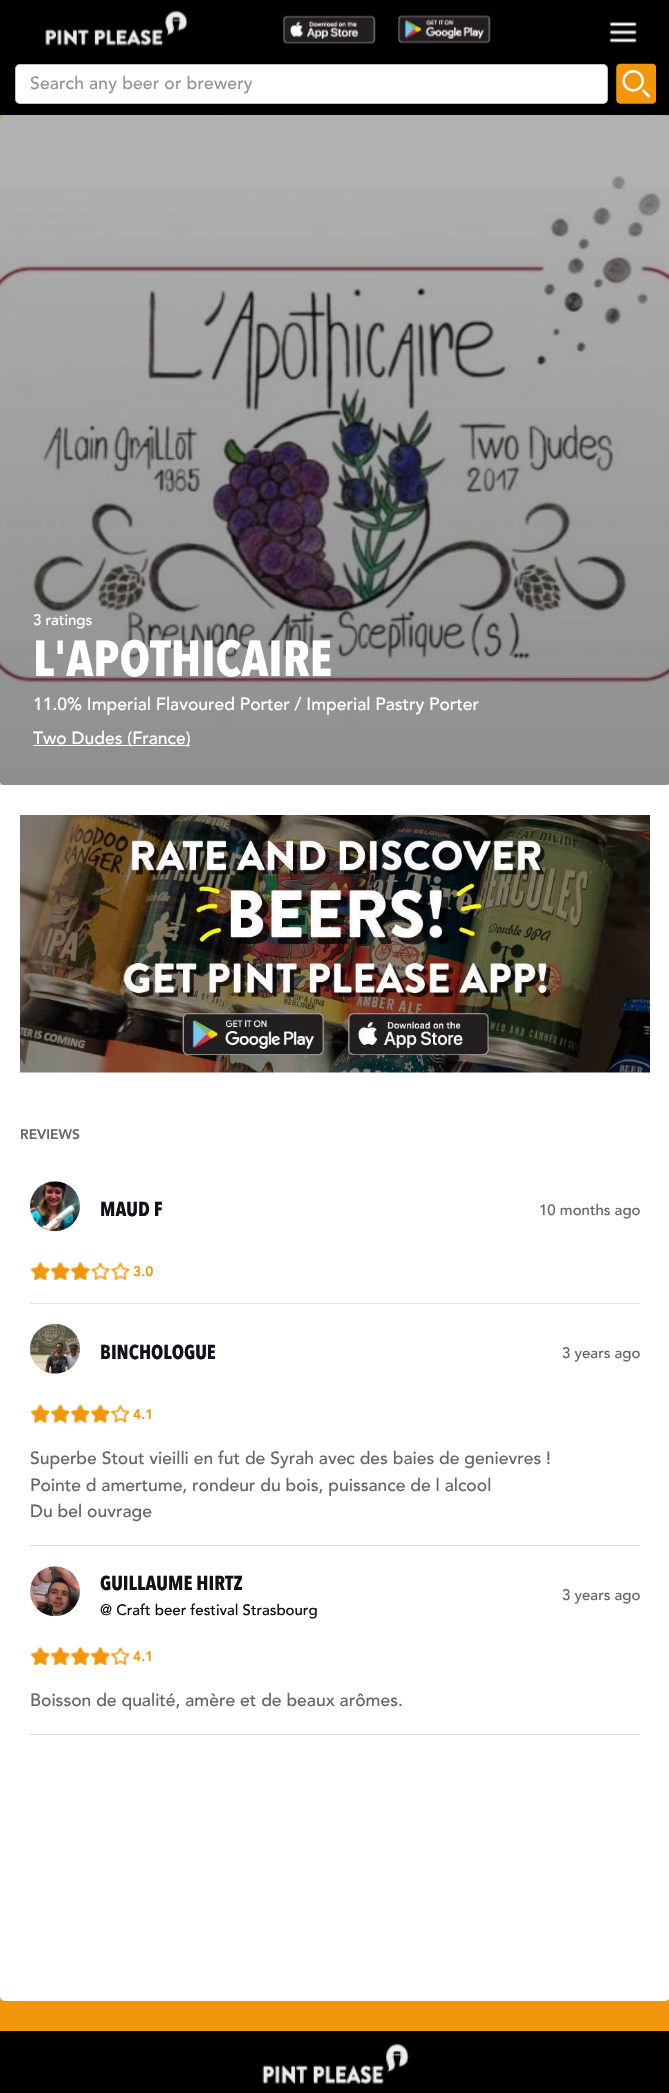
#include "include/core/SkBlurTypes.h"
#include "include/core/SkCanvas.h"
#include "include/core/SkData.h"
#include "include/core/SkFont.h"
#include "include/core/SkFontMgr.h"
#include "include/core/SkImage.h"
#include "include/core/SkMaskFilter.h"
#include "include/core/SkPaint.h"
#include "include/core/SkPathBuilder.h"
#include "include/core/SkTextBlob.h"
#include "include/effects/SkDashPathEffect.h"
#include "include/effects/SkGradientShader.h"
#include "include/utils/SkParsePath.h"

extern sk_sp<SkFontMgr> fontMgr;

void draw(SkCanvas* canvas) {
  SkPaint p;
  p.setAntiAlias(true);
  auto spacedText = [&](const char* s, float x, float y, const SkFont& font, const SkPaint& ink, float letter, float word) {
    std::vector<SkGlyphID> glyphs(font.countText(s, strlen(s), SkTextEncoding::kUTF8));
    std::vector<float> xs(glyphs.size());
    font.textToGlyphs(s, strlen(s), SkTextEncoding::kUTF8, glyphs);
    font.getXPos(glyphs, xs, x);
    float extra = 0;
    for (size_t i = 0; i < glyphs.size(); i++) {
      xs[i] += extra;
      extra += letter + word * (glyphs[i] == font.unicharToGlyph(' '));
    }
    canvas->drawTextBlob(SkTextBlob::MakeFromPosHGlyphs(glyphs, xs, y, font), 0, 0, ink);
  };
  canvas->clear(SkColorSetRGB(242, 151, 13));
  p.setColor(SK_ColorBLACK);
  canvas->drawRect(SkRect::MakeLTRB(0, 0, 669, 115), p);
  canvas->drawImageRect(SkImages::DeferredFromEncodedData(SkData::MakeFromFileName("images/1.png")), SkRect::MakeLTRB(45, 10, 188, 46), SkSamplingOptions());
  canvas->drawImageRect(SkImages::DeferredFromEncodedData(SkData::MakeFromFileName("images/2.png")), SkRect::MakeLTRB(283, 15, 376, 44), SkSamplingOptions());
  canvas->drawImageRect(SkImages::DeferredFromEncodedData(SkData::MakeFromFileName("images/3.png")), SkRect::MakeLTRB(398, 15, 491, 44), SkSamplingOptions());
  canvas->drawImageRect(SkImages::DeferredFromEncodedData(SkData::MakeFromFileName("images/4.png")), SkRect::MakeLTRB(609, 22, 637, 43), SkSamplingOptions());
  p.setColor(SK_ColorWHITE);
  canvas->drawRoundRect(SkRect::MakeLTRB(15, 64, 608, 104), 5, 5, p);
  p.setStyle(SkPaint::kStroke_Style);
  p.setStrokeWidth(1);
  p.setColor(SkColorSetARGB(61, 0, 0, 0));
  canvas->drawRoundRect(SkRect::MakeLTRB(15.5f, 64.5f, 607.5f, 103.5f), 4.5f, 4.5f, p);
  canvas->drawImageRect(SkImages::DeferredFromEncodedData(SkData::MakeFromFileName("images/5.png")), SkRect::MakeLTRB(616, 63, 657, 104), SkSamplingOptions());
  p.setStyle(SkPaint::kFill_Style);
  p.setColor(SK_ColorWHITE);
  canvas->drawRoundRect(SkRect::MakeLTRB(0, 115, 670, 2001), 5, 5, p);
  p.setColor(SK_ColorBLACK);
  canvas->drawRoundRect(SkRect::MakeLTRB(0, 115, 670, 785), 5, 5, p);
  canvas->drawImageRect(SkImages::DeferredFromEncodedData(SkData::MakeFromFileName("images/6.png")), SkRect::MakeLTRB(0, 115, 669, 785), SkSamplingOptions());
  {
    const SkColor colors[] = {SkColorSetARGB(0, 0, 0, 0), SkColorSetARGB(51, 0, 0, 0)};
    const float stops[] = {0, 1};
    const SkPoint ends[] = {{335, 115}, {335, 785}};
    p.setShader(SkGradientShader::MakeLinear(ends, colors, stops, 2, SkTileMode::kClamp));
    p.setAlpha(255);
  }
  canvas->drawRect(SkRect::MakeLTRB(0, 187, 669, 785), p);
  p.setShader(nullptr);
  p.setColor(SK_ColorWHITE);
  canvas->drawRect(SkRect::MakeLTRB(33, 745, 190, 746), p);
  canvas->drawImageRect(SkImages::DeferredFromEncodedData(SkData::MakeFromFileName("images/7.png")), SkRect::MakeLTRB(20, 815, 650, 1073), SkSamplingOptions());
  canvas->drawImageRect(SkImages::DeferredFromEncodedData(SkData::MakeFromFileName("images/8.png")), SkRect::MakeLTRB(30, 1181, 80, 1232), SkSamplingOptions());
  canvas->drawImageRect(SkImages::DeferredFromEncodedData(SkData::MakeFromFileName("images/9.png")), SkRect::MakeLTRB(30, 1262, 130, 1280), SkSamplingOptions());
  canvas->drawImageRect(SkImages::DeferredFromEncodedData(SkData::MakeFromFileName("images/10.png")), SkRect::MakeLTRB(30, 1262, 90, 1280), SkSamplingOptions());
  p.setColor(SkColorSetRGB(224, 224, 224));
  canvas->drawRect(SkRect::MakeLTRB(30, 1303, 640, 1304), p);
  canvas->drawImageRect(SkImages::DeferredFromEncodedData(SkData::MakeFromFileName("images/11.png")), SkRect::MakeLTRB(30, 1323, 80, 1374), SkSamplingOptions());
  canvas->drawImageRect(SkImages::DeferredFromEncodedData(SkData::MakeFromFileName("images/12.png")), SkRect::MakeLTRB(30, 1404, 130, 1423), SkSamplingOptions());
  canvas->drawImageRect(SkImages::DeferredFromEncodedData(SkData::MakeFromFileName("images/13.png")), SkRect::MakeLTRB(31, 1404, 113, 1423), SkSamplingOptions());
  canvas->drawRect(SkRect::MakeLTRB(30, 1545, 640, 1546), p);
  canvas->drawImageRect(SkImages::DeferredFromEncodedData(SkData::MakeFromFileName("images/14.png")), SkRect::MakeLTRB(30, 1566, 80, 1617), SkSamplingOptions());
  canvas->drawImageRect(SkImages::DeferredFromEncodedData(SkData::MakeFromFileName("images/15.png")), SkRect::MakeLTRB(30, 1647, 130, 1665), SkSamplingOptions());
  canvas->drawImageRect(SkImages::DeferredFromEncodedData(SkData::MakeFromFileName("images/16.png")), SkRect::MakeLTRB(30, 1647, 113, 1665), SkSamplingOptions());
  canvas->drawRect(SkRect::MakeLTRB(30, 1734, 640, 1735), p);
  p.setColor(SK_ColorBLACK);
  canvas->drawRect(SkRect::MakeLTRB(0, 2031, 669, 2093), p);
  canvas->drawImageRect(SkImages::DeferredFromEncodedData(SkData::MakeFromFileName("images/17.png")), SkRect::MakeLTRB(262, 2043, 409, 2084), SkSamplingOptions());
  SkFont font1(fontMgr->matchFamilyStyle("Avenir", SkFontStyle(500, SkFontStyle::kNormal_Width, SkFontStyle::kUpright_Slant)), 17.5f);
  font1.setSubpixel(true);
  p.setColor(SkColorSetRGB(148, 148, 151));
  spacedText("Search any beer or brewery", 30, 89, font1, p, 0.15f, 0);
  SkFont font2(fontMgr->matchFamilyStyle("Avenir", SkFontStyle(500, SkFontStyle::kNormal_Width, SkFontStyle::kUpright_Slant)), 15);
  font2.setSubpixel(true);
  p.setColor(SK_ColorWHITE);
  canvas->drawString("3 ratings", 33, 625, font2, p);
  SkFont font3(fontMgr->matchFamilyStyle("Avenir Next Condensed", SkFontStyle::Bold()), 50);
  font3.setSubpixel(true);
  canvas->drawString("L'APOTHICAIRE", 33, 676, font3, p);
  canvas->drawString("11.0% Imperial Flavoured Porter / Imperial Pastry Porter", 33, 710, font1, p);
  canvas->drawString("Two Dudes (France)", 33, 744, font1, p);
  SkFont font4(fontMgr->matchFamilyStyle("Avenir", SkFontStyle(900, SkFontStyle::kNormal_Width, SkFontStyle::kUpright_Slant)), 13.75f);
  font4.setSubpixel(true);
  p.setColor(SkColorSetRGB(102, 102, 106));
  canvas->drawString("REVIEWS", 20, 1139, font4, p);
  SkFont font5(fontMgr->matchFamilyStyle("Avenir Next Condensed", SkFontStyle::Bold()), 20);
  font5.setSubpixel(true);
  p.setColor(SkColorSetRGB(17, 17, 26));
  canvas->drawString("MAUD F", 100, 1216, font5, p);
  p.setColor(SkColorSetRGB(102, 102, 106));
  canvas->drawString("10 months ago", 539, 1215, font2, p);
  p.setColor(SkColorSetRGB(242, 151, 13));
  canvas->drawString("3.0", 133, 1276, font4, p);
  p.setColor(SkColorSetRGB(17, 17, 26));
  canvas->drawString("BINCHOLOGUE", 100, 1359, font5, p);
  p.setColor(SkColorSetRGB(102, 102, 106));
  canvas->drawString("3 years ago", 562, 1358, font2, p);
  p.setColor(SkColorSetRGB(242, 151, 13));
  canvas->drawString("4.1", 133, 1419, font4, p);
  p.setColor(SkColorSetRGB(102, 102, 106));
  canvas->drawString("Superbe Stout vieilli en fut de Syrah avec des baies de genievres !", 30, 1464, font1, p);
  canvas->drawString("Pointe d amertume, rondeur du bois, puissance de l alcool", 30, 1491, font1, p);
  canvas->drawString("Du bel ouvrage", 30, 1517, font1, p);
  p.setColor(SkColorSetRGB(17, 17, 26));
  canvas->drawString("GUILLAUME HIRTZ", 100, 1590, font5, p);
  canvas->drawString("@ Craft beer festival Strasbourg", 100, 1615, font2, p);
  p.setColor(SkColorSetRGB(102, 102, 106));
  canvas->drawString("3 years ago", 562, 1600, font2, p);
  p.setColor(SkColorSetRGB(242, 151, 13));
  canvas->drawString("4.1", 133, 1661, font4, p);
  p.setColor(SkColorSetRGB(102, 102, 106));
  canvas->drawString("Boisson de qualité, amère et de beaux arômes.", 30, 1706, font1, p);
}
